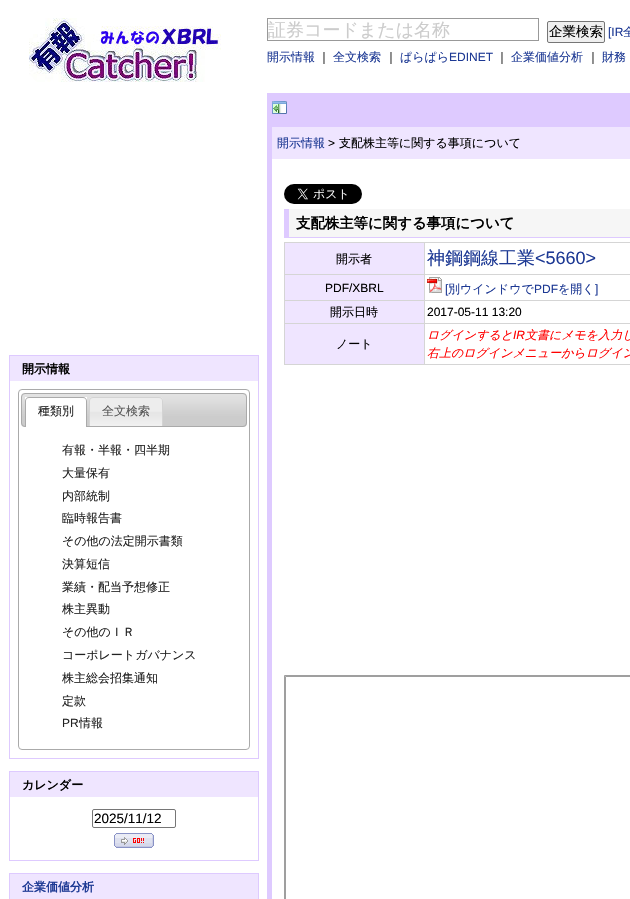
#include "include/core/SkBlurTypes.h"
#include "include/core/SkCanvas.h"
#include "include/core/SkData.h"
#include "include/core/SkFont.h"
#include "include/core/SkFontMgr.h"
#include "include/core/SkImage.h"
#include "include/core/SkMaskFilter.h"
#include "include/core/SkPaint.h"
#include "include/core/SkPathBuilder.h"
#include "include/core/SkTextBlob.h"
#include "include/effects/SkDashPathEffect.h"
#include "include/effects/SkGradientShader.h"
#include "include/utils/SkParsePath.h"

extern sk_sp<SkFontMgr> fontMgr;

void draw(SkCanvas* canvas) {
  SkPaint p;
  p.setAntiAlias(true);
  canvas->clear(SK_ColorWHITE);
  canvas->drawImageRect(SkImages::DeferredFromEncodedData(SkData::MakeFromFileName("images/1.png")), SkRect::MakeLTRB(29, 18, 221, 82), SkSamplingOptions());
  p.setStyle(SkPaint::kStroke_Style);
  p.setStrokeWidth(1);
  p.setColor(SkColorSetRGB(153, 153, 153));
  canvas->drawRect(SkRect::MakeLTRB(267.5f, 18.5f, 538.5f, 40.5f), p);
  p.setStyle(SkPaint::kFill_Style);
  p.setColor(SkColorSetRGB(239, 239, 239));
  canvas->drawRoundRect(SkRect::MakeLTRB(547.5f, 21.5f, 604.5f, 42.5f), 1.5f, 1.5f, p);
  p.setStyle(SkPaint::kStroke_Style);
  p.setColor(SkColorSetRGB(118, 118, 118));
  canvas->drawRoundRect(SkRect::MakeLTRB(547.5f, 21.5f, 604.5f, 42.5f), 1.5f, 1.5f, p);
  p.setStyle(SkPaint::kFill_Style);
  p.setColor(SkColorSetRGB(222, 202, 255));
  canvas->drawRect(SkRect::MakeLTRB(267, 93, 630, 899), p);
  canvas->drawImageRect(SkImages::DeferredFromEncodedData(SkData::MakeFromFileName("images/2.png")), SkRect::MakeLTRB(272, 101, 287, 114), SkSamplingOptions());
  p.setColor(SkColorSetRGB(239, 229, 255));
  canvas->drawRect(SkRect::MakeLTRB(272, 127, 630, 159), p);
  p.setColor(SK_ColorWHITE);
  canvas->drawRect(SkRect::MakeLTRB(272, 159, 630, 899), p);
  canvas->drawImageRect(SkImages::DeferredFromEncodedData(SkData::MakeFromFileName("images/3.png")), SkRect::MakeLTRB(284, 184, 362, 204), SkSamplingOptions());
  p.setColor(SkColorSetRGB(246, 246, 246));
  canvas->drawRect(SkRect::MakeLTRB(289, 209, 630, 237), p);
  p.setColor(SkColorSetRGB(222, 202, 255));
  canvas->drawRect(SkRect::MakeLTRB(284, 237, 630, 238), p);
  canvas->drawRect(SkRect::MakeLTRB(284, 209, 289, 238), p);
  p.setColor(SkColorSetRGB(213, 213, 213));
  canvas->drawRect(SkRect::MakeLTRB(284, 242, 630, 243), p);
  canvas->drawRect(SkRect::MakeLTRB(284, 364, 630, 365), p);
  canvas->drawRect(SkRect::MakeLTRB(284, 242, 285, 365), p);
  p.setColor(SkColorSetRGB(239, 229, 255));
  canvas->drawRect(SkRect::MakeLTRB(285, 243, 424, 274), p);
  p.setColor(SkColorSetRGB(213, 213, 213));
  canvas->drawRect(SkRect::MakeLTRB(424, 274, 630, 275), p);
  canvas->drawRect(SkRect::MakeLTRB(424, 300, 630, 301), p);
  canvas->drawRect(SkRect::MakeLTRB(424, 323, 630, 324), p);
  canvas->drawRect(SkRect::MakeLTRB(424, 323, 425, 365), p);
  canvas->drawRect(SkRect::MakeLTRB(284, 323, 425, 324), p);
  canvas->drawRect(SkRect::MakeLTRB(424, 300, 425, 324), p);
  canvas->drawRect(SkRect::MakeLTRB(284, 300, 425, 301), p);
  canvas->drawRect(SkRect::MakeLTRB(424, 274, 425, 301), p);
  canvas->drawRect(SkRect::MakeLTRB(284, 274, 425, 275), p);
  canvas->drawRect(SkRect::MakeLTRB(424, 242, 425, 275), p);
  p.setColor(SkColorSetRGB(239, 229, 255));
  canvas->drawRect(SkRect::MakeLTRB(285, 275, 424, 300), p);
  canvas->drawImageRect(SkImages::DeferredFromEncodedData(SkData::MakeFromFileName("images/4.png")), SkRect::MakeLTRB(427, 277, 442, 293), SkSamplingOptions());
  canvas->drawRect(SkRect::MakeLTRB(285, 301, 424, 323), p);
  canvas->drawRect(SkRect::MakeLTRB(285, 324, 424, 364), p);
  p.setColor(SkColorSetRGB(159, 159, 159));
  canvas->drawPath(SkPathBuilder().moveTo(284, 675).lineTo(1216, 675).lineTo(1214, 677).lineTo(286, 677).close().detach(), p);
  canvas->drawPath(SkPathBuilder().moveTo(284, 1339).lineTo(284, 675).lineTo(286, 677).lineTo(286, 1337).close().detach(), p);
  p.setStyle(SkPaint::kStroke_Style);
  p.setColor(SkColorSetRGB(222, 202, 255));
  canvas->drawRect(SkRect::MakeLTRB(9.5f, 355.5f, 258.5f, 758.5f), p);
  p.setStyle(SkPaint::kFill_Style);
  p.setColor(SkColorSetRGB(239, 229, 255));
  canvas->drawRect(SkRect::MakeLTRB(10, 356, 258, 381), p);
  p.setStyle(SkPaint::kStroke_Style);
  p.setColor(SkColorSetRGB(170, 170, 170));
  canvas->drawRoundRect(SkRect::MakeLTRB(18.5f, 389.5f, 249.5f, 749.5f), 3.5f, 3.5f, p);
  canvas->drawImageRect(SkImages::DeferredFromEncodedData(SkData::MakeFromFileName("images/5.png")), SkRect::MakeLTRB(21, 393, 247, 427), SkSamplingOptions());
  canvas->drawRoundRect(SkRect::MakeLTRB(21.5f, 393.5f, 246.5f, 426.5f), 3.5f, 3.5f, p);
  p.setStyle(SkPaint::kFill_Style);
  p.setColor(SK_ColorWHITE);
  canvas->drawRect(SkRect::MakeLTRB(25, 400, 87, 427), p);
  p.setColor(SkColorSetRGB(254, 254, 254));
  canvas->drawRect(SkRect::MakeLTRB(25, 397, 87, 400), p);
  p.setColor(SkColorSetRGB(170, 170, 170));
  canvas->drawPath(SkPathBuilder(SkPathFillType::kEvenOdd).moveTo(29, 397).lineTo(83, 397).cubicTo(85, 397, 87, 399, 87, 401).lineTo(87, 427).lineTo(25, 427).lineTo(25, 401).cubicTo(25, 399, 27, 397, 29, 397).close().moveTo(29, 398).lineTo(83, 398).cubicTo(85, 398, 86, 399, 86, 401).lineTo(86, 427).lineTo(26, 427).lineTo(26, 401).cubicTo(26, 399, 27, 398, 29, 398).close().detach(), p);
  canvas->drawImageRect(SkImages::DeferredFromEncodedData(SkData::MakeFromFileName("images/6.png")), SkRect::MakeLTRB(89, 397, 163, 426), SkSamplingOptions());
  p.setColor(SkColorSetRGB(211, 211, 211));
  canvas->drawPath(SkPathBuilder(SkPathFillType::kEvenOdd).moveTo(93, 397).lineTo(159, 397).cubicTo(161, 397, 163, 399, 163, 401).lineTo(163, 426).lineTo(89, 426).lineTo(89, 401).cubicTo(89, 399, 91, 397, 93, 397).close().moveTo(93, 398).lineTo(159, 398).cubicTo(161, 398, 162, 399, 162, 401).lineTo(162, 426).lineTo(90, 426).lineTo(90, 401).cubicTo(90, 399, 91, 398, 93, 398).close().detach(), p);
  p.setStyle(SkPaint::kStroke_Style);
  p.setColor(SkColorSetRGB(222, 202, 255));
  canvas->drawRect(SkRect::MakeLTRB(9.5f, 771.5f, 258.5f, 860.5f), p);
  p.setStyle(SkPaint::kFill_Style);
  p.setColor(SkColorSetRGB(239, 229, 255));
  canvas->drawRect(SkRect::MakeLTRB(10, 772, 258, 797), p);
  p.setStyle(SkPaint::kStroke_Style);
  p.setColor(SkColorSetRGB(118, 118, 118));
  canvas->drawRoundRect(SkRect::MakeLTRB(92.5f, 809.5f, 175.5f, 827.5f), 1.5f, 1.5f, p);
  canvas->drawImageRect(SkImages::DeferredFromEncodedData(SkData::MakeFromFileName("images/7.png")), SkRect::MakeLTRB(114, 833, 154, 848), SkSamplingOptions());
  p.setColor(SkColorSetRGB(222, 202, 255));
  canvas->drawRect(SkRect::MakeLTRB(9.5f, 873.5f, 258.5f, 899.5f), p);
  p.setStyle(SkPaint::kFill_Style);
  p.setColor(SkColorSetRGB(239, 229, 255));
  canvas->drawRect(SkRect::MakeLTRB(10, 874, 258, 899), p);
  SkFont font1(fontMgr->matchFamilyStyle("WenQuanYi Zen Hei", SkFontStyle(500, SkFontStyle::kNormal_Width, SkFontStyle::kUpright_Slant)), 18);
  font1.setSubpixel(true);
  p.setColor(SkColorSetRGB(204, 204, 204));
  canvas->drawString("証券コードまたは名称", 268, 36, font1, p);
  SkFont font2(fontMgr->matchFamilyStyle("WenQuanYi Zen Hei", SkFontStyle(500, SkFontStyle::kNormal_Width, SkFontStyle::kUpright_Slant)), 13.5f);
  font2.setSubpixel(true);
  p.setColor(SK_ColorBLACK);
  canvas->drawString("企業検索", 549, 36, font2, p);
  SkFont font3(fontMgr->matchFamilyStyle("Liberation Sans", SkFontStyle::Normal()), 12);
  font3.setSubpixel(true);
  p.setColor(SkColorSetRGB(29, 57, 148));
  canvas->drawString("[IR", 608, 36, font3, p);
  SkFont font4(fontMgr->matchFamilyStyle("WenQuanYi Zen Hei", SkFontStyle(500, SkFontStyle::kNormal_Width, SkFontStyle::kUpright_Slant)), 12);
  font4.setSubpixel(true);
  canvas->drawString("全", 623, 36, font4, p);
  canvas->drawString("開示情報", 267, 61, font4, p);
  p.setColor(SK_ColorBLACK);
  canvas->drawString("｜", 318, 61, font4, p);
  p.setColor(SkColorSetRGB(29, 57, 148));
  canvas->drawString("全文検索", 333, 61, font4, p);
  p.setColor(SK_ColorBLACK);
  canvas->drawString("｜", 385, 61, font4, p);
  p.setColor(SkColorSetRGB(29, 57, 148));
  canvas->drawString("ぱらぱら", 400, 61, font4, p);
  canvas->drawString("EDINET", 449, 61, font3, p);
  p.setColor(SK_ColorBLACK);
  canvas->drawString("｜", 496, 61, font4, p);
  p.setColor(SkColorSetRGB(29, 57, 148));
  canvas->drawString("企業価値分析", 511, 61, font4, p);
  p.setColor(SK_ColorBLACK);
  canvas->drawString("｜", 587, 61, font4, p);
  p.setColor(SkColorSetRGB(29, 57, 148));
  canvas->drawString("財務", 602, 61, font4, p);
  canvas->drawString("開示情報", 277, 147, font4, p);
  p.setColor(SK_ColorBLACK);
  canvas->drawString(">", 328, 147, font3, p);
  canvas->drawString("支配株主等に関する事項について", 339, 147, font4, p);
  SkFont font5(fontMgr->matchFamilyStyle("WenQuanYi Zen Hei", SkFontStyle::Bold()), 14.4f);
  font5.setSubpixel(true);
  canvas->drawString("支配株主等に関する事項について", 296, 228, font5, p);
  canvas->drawString("開示者", 336, 263, font4, p);
  p.setColor(SkColorSetRGB(29, 57, 148));
  canvas->drawString("神鋼鋼線工業", 427, 264, font1, p);
  SkFont font6(fontMgr->matchFamilyStyle("Liberation Sans", SkFontStyle::Normal()), 18);
  font6.setSubpixel(true);
  canvas->drawString("<5660>", 535, 264, font6, p);
  p.setColor(SK_ColorBLACK);
  canvas->drawString("PDF/XBRL", 325, 292, font3, p);
  p.setColor(SkColorSetRGB(29, 57, 148));
  canvas->drawString("[", 445, 293, font3, p);
  canvas->drawString("別ウインドウで", 448, 293, font4, p);
  canvas->drawString("PDF", 534, 293, font3, p);
  canvas->drawString("を開く", 558, 293, font4, p);
  canvas->drawString("]", 595, 293, font3, p);
  p.setColor(SK_ColorBLACK);
  canvas->drawString("開示日時", 330, 316, font4, p);
  canvas->drawString("2017-05-11 13:20", 427, 316, font3, p);
  canvas->drawString("ノート", 336, 348, font4, p);
  SkFont font7(fontMgr->matchFamilyStyle("WenQuanYi Zen Hei", SkFontStyle(500, SkFontStyle::kNormal_Width, SkFontStyle::kItalic_Slant)), 12);
  font7.setSubpixel(true);
  p.setColor(SkColorSetRGB(255, 0, 0));
  canvas->drawString("ログインすると", 427, 339, font7, p);
  SkFont font8(fontMgr->matchFamilyStyle("Liberation Sans", SkFontStyle::Italic()), 12);
  font8.setSubpixel(true);
  canvas->drawString("IR", 513, 339, font8, p);
  canvas->drawString("文書にメモを入力し", 525, 339, font7, p);
  canvas->drawString("右上のログインメニューからログイン", 427, 357, font7, p);
  SkFont font9(fontMgr->matchFamilyStyle("WenQuanYi Zen Hei", SkFontStyle::Bold()), 12);
  font9.setSubpixel(true);
  p.setColor(SK_ColorBLACK);
  canvas->drawString("開示情報", 22, 373, font9, p);
  p.setColor(SkColorSetRGB(34, 34, 34));
  canvas->drawString("種類別", 38, 415, font4, p);
  p.setColor(SkColorSetRGB(85, 85, 85));
  canvas->drawString("全文検索", 102, 415, font4, p);
  p.setColor(SkColorSetRGB(34, 34, 34));
  canvas->drawString("有報・半報・四半期", 62, 454, font4, p);
  canvas->drawString("大量保有", 62, 477, font4, p);
  canvas->drawString("内部統制", 62, 500, font4, p);
  canvas->drawString("臨時報告書", 62, 522, font4, p);
  canvas->drawString("その他の法定開示書類", 62, 545, font4, p);
  canvas->drawString("決算短信", 62, 568, font4, p);
  canvas->drawString("業績・配当予想修正", 62, 591, font4, p);
  canvas->drawString("株主異動", 62, 613, font4, p);
  canvas->drawString("その他のＩＲ", 62, 636, font4, p);
  canvas->drawString("コーポレートガバナンス", 62, 659, font4, p);
  canvas->drawString("株主総会招集通知", 62, 682, font4, p);
  canvas->drawString("定款", 62, 705, font4, p);
  canvas->drawString("PR", 62, 727, font3, p);
  canvas->drawString("情報", 79, 727, font4, p);
  p.setColor(SK_ColorBLACK);
  canvas->drawString("カレンダー", 22, 789, font9, p);
  SkFont font10(fontMgr->matchFamilyStyle("Liberation Sans", SkFontStyle::Normal()), 13.5f);
  font10.setSubpixel(true);
  canvas->drawString("2025/11/12", 94, 823, font10, p);
  p.setColor(SkColorSetRGB(29, 57, 148));
  canvas->drawString("企業価値分析", 22, 891, font9, p);
}
